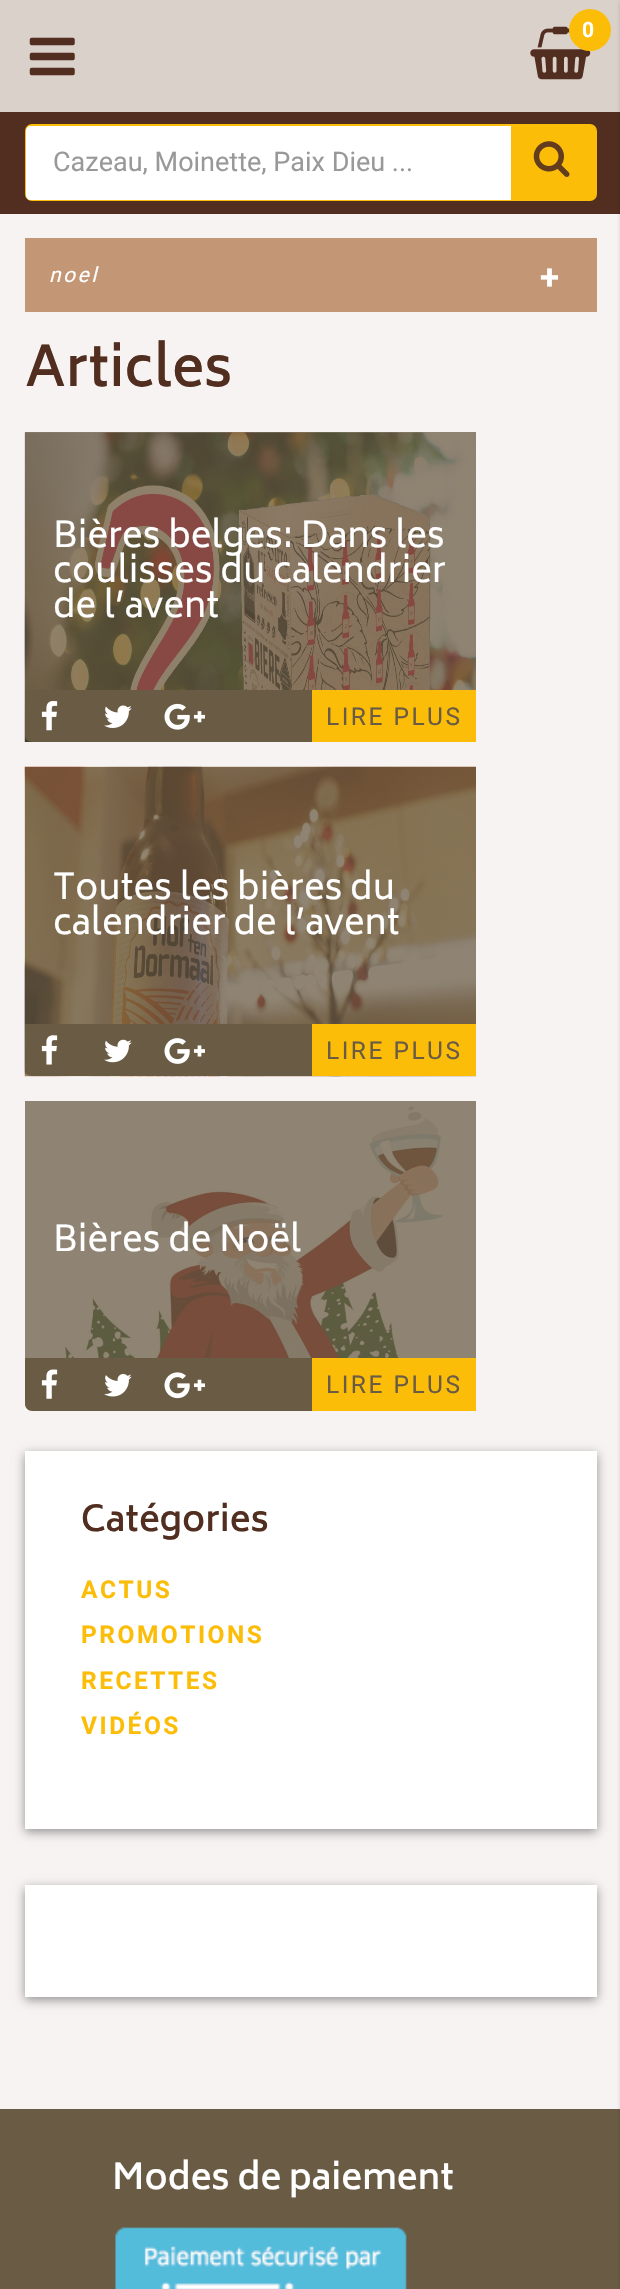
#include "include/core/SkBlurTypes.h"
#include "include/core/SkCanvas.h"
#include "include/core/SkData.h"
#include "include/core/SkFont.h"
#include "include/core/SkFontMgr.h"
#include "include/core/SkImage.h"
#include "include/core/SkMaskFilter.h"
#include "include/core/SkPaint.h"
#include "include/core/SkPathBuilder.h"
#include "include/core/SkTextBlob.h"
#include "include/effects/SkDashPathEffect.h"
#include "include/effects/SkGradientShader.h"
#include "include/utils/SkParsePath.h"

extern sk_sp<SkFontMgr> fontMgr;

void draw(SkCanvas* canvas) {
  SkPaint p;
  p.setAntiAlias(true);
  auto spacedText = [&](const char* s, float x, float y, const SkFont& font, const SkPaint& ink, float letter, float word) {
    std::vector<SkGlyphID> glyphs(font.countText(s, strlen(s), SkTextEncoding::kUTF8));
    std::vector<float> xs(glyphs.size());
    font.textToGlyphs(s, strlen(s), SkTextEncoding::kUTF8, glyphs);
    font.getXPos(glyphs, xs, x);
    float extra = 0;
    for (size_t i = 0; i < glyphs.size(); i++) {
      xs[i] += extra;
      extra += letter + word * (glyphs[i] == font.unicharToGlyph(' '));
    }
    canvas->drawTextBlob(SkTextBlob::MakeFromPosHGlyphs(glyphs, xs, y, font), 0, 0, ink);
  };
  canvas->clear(SkColorSetRGB(246, 243, 242));
  p.setColor(SkColorSetRGB(218, 209, 202));
  canvas->drawRect(SkRect::MakeLTRB(0, 0, 620, 112), p);
  canvas->drawImageRect(SkImages::DeferredFromEncodedData(SkData::MakeFromFileName("images/1.png")), SkRect::MakeLTRB(530, 26, 591, 80), SkSamplingOptions());
  p.setColor(SkColorSetRGB(251, 189, 8));
  canvas->drawCircle(590, 30, 21, p);
  canvas->drawImageRect(SkImages::DeferredFromEncodedData(SkData::MakeFromFileName("images/2.png")), SkRect::MakeLTRB(29, 37, 75, 76), SkSamplingOptions());
  p.setColor(SkColorSetRGB(81, 46, 31));
  canvas->drawRect(SkRect::MakeLTRB(0, 112, 620, 214), p);
  p.setColor(SkColorSetRGB(251, 189, 8));
  canvas->drawRoundRect(SkRect::MakeLTRB(26, 125, 596, 200), 6, 6, p);
  p.setStyle(SkPaint::kStroke_Style);
  p.setStrokeWidth(2);
  canvas->drawRoundRect(SkRect::MakeLTRB(26, 125, 596, 200), 6, 6, p);
  p.setStyle(SkPaint::kFill_Style);
  p.setColor(SK_ColorWHITE);
  canvas->drawPath(SkPathBuilder().moveTo(31, 126).lineTo(511, 126).lineTo(511, 200).lineTo(31, 200).cubicTo(28, 200, 26, 198, 26, 195).lineTo(26, 131).cubicTo(26, 128, 28, 126, 31, 126).close().detach(), p);
  canvas->drawImageRect(SkImages::DeferredFromEncodedData(SkData::MakeFromFileName("images/3.png")), SkRect::MakeLTRB(533, 141, 570, 177), SkSamplingOptions());
  p.setColor(SkColorSetRGB(195, 150, 117));
  canvas->drawRect(SkRect::MakeLTRB(25, 238, 597, 312), p);
  p.setColor(SkColorSetRGB(143, 132, 115));
  canvas->drawRect(SkRect::MakeLTRB(25, 432, 476, 433), p);
  canvas->drawImageRect(SkImages::DeferredFromEncodedData(SkData::MakeFromFileName("images/4.png")), SkRect::MakeLTRB(24, 432, 476, 742), SkSamplingOptions());
  p.setColor(SkColorSetRGB(106, 91, 68));
  canvas->drawPath(SkPathBuilder().moveTo(25, 690).lineTo(476, 690).lineTo(476, 735).cubicTo(476, 739, 473, 742, 469, 742).lineTo(32, 742).cubicTo(28, 742, 25, 739, 25, 735).close().detach(), p);
  canvas->drawImageRect(SkImages::DeferredFromEncodedData(SkData::MakeFromFileName("images/5.png")), SkRect::MakeLTRB(41, 701, 58, 731), SkSamplingOptions());
  canvas->drawImageRect(SkImages::DeferredFromEncodedData(SkData::MakeFromFileName("images/6.png")), SkRect::MakeLTRB(104, 705, 132, 728), SkSamplingOptions());
  canvas->drawImageRect(SkImages::DeferredFromEncodedData(SkData::MakeFromFileName("images/7.png")), SkRect::MakeLTRB(164, 703, 205, 730), SkSamplingOptions());
  p.setColor(SkColorSetRGB(251, 189, 8));
  canvas->drawRect(SkRect::MakeLTRB(312, 690, 476, 742), p);
  canvas->drawImageRect(SkImages::DeferredFromEncodedData(SkData::MakeFromFileName("images/8.png")), SkRect::MakeLTRB(24, 766, 476, 1077), SkSamplingOptions());
  p.setColor(SkColorSetRGB(106, 91, 68));
  canvas->drawPath(SkPathBuilder().moveTo(25, 1024).lineTo(476, 1024).lineTo(476, 1069).cubicTo(476, 1073, 473, 1076, 469, 1076).lineTo(32, 1076).cubicTo(28, 1076, 25, 1073, 25, 1069).close().detach(), p);
  canvas->drawImageRect(SkImages::DeferredFromEncodedData(SkData::MakeFromFileName("images/9.png")), SkRect::MakeLTRB(41, 1035, 58, 1065), SkSamplingOptions());
  canvas->drawImageRect(SkImages::DeferredFromEncodedData(SkData::MakeFromFileName("images/10.png")), SkRect::MakeLTRB(104, 1039, 132, 1063), SkSamplingOptions());
  canvas->drawImageRect(SkImages::DeferredFromEncodedData(SkData::MakeFromFileName("images/11.png")), SkRect::MakeLTRB(164, 1038, 205, 1064), SkSamplingOptions());
  p.setColor(SkColorSetRGB(251, 189, 8));
  canvas->drawRect(SkRect::MakeLTRB(312, 1024, 476, 1076), p);
  p.setColor(SK_ColorWHITE);
  canvas->drawRect(SkRect::MakeLTRB(25, 1404, 32, 1411), p);
  p.setColor(SkColorSetRGB(143, 132, 115));
  canvas->drawRect(SkRect::MakeLTRB(25, 1101, 476, 1358), p);
  canvas->drawImageRect(SkImages::DeferredFromEncodedData(SkData::MakeFromFileName("images/12.png")), SkRect::MakeLTRB(46, 1105, 445, 1358), SkSamplingOptions());
  p.setColor(SkColorSetRGB(106, 91, 68));
  canvas->drawPath(SkPathBuilder().moveTo(25, 1358).lineTo(476, 1358).lineTo(476, 1404).cubicTo(476, 1408, 473, 1411, 469, 1411).lineTo(32, 1411).cubicTo(28, 1411, 25, 1408, 25, 1404).close().detach(), p);
  canvas->drawImageRect(SkImages::DeferredFromEncodedData(SkData::MakeFromFileName("images/13.png")), SkRect::MakeLTRB(41, 1369, 58, 1399), SkSamplingOptions());
  canvas->drawImageRect(SkImages::DeferredFromEncodedData(SkData::MakeFromFileName("images/14.png")), SkRect::MakeLTRB(104, 1374, 132, 1397), SkSamplingOptions());
  canvas->drawImageRect(SkImages::DeferredFromEncodedData(SkData::MakeFromFileName("images/15.png")), SkRect::MakeLTRB(164, 1372, 205, 1399), SkSamplingOptions());
  p.setColor(SkColorSetRGB(251, 189, 8));
  canvas->drawRect(SkRect::MakeLTRB(312, 1358, 476, 1411), p);
  p.setColor(SkColorSetARGB(102, 0, 0, 0));
  p.setMaskFilter(SkMaskFilter::MakeBlur(kNormal_SkBlurStyle, 5));
  canvas->drawRect(SkRect::MakeLTRB(25, 1454, 597, 1832), p);
  p.setMaskFilter(nullptr);
  p.setColor(SK_ColorWHITE);
  canvas->drawRect(SkRect::MakeLTRB(25, 1451, 597, 1829), p);
  p.setColor(SkColorSetARGB(102, 0, 0, 0));
  p.setMaskFilter(SkMaskFilter::MakeBlur(kNormal_SkBlurStyle, 5));
  canvas->drawRect(SkRect::MakeLTRB(25, 1888, 597, 2000), p);
  p.setMaskFilter(nullptr);
  p.setColor(SK_ColorWHITE);
  canvas->drawRect(SkRect::MakeLTRB(25, 1885, 597, 1997), p);
  p.setColor(SkColorSetRGB(106, 91, 68));
  canvas->drawRect(SkRect::MakeLTRB(0, 2109, 620, 2289), p);
  canvas->drawImageRect(SkImages::DeferredFromEncodedData(SkData::MakeFromFileName("images/16.png")), SkRect::MakeLTRB(115, 2227, 407, 2289), SkSamplingOptions());
  p.setColor(SkColorSetARGB(61, 0, 0, 0));
  p.setMaskFilter(SkMaskFilter::MakeBlur(kNormal_SkBlurStyle, 2));
  canvas->drawRect(SkRect::MakeLTRB(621, 2, 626, 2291), p);
  p.setMaskFilter(nullptr);
  SkFont font1(fontMgr->matchFamilyStyle("Roboto", SkFontStyle::Bold()), 21);
  font1.setSubpixel(true);
  p.setColor(SK_ColorWHITE);
  spacedText("0", 582, 37, font1, p, 2.5f, 0);
  SkFont font2(fontMgr->matchFamilyStyle("Roboto", SkFontStyle::Normal()), 27);
  font2.setSubpixel(true);
  p.setColor(SkColorSetRGB(153, 153, 153));
  canvas->drawString("Cazeau, Moinette, Paix Dieu ...", 53, 171, font2, p);
  SkFont font3(fontMgr->matchFamilyStyle("Roboto", SkFontStyle::Italic()), 21);
  font3.setSubpixel(true);
  p.setColor(SK_ColorWHITE);
  spacedText("noel", 49, 282, font3, p, 2.5f, 0);
  SkFont font4(fontMgr->matchFamilyStyle("Roboto", SkFontStyle::Bold()), 35);
  font4.setSubpixel(true);
  spacedText("+", 540, 289, font4, p, 2.5f, 0);
  SkFont font5(fontMgr->matchFamilyStyle("Biryani", SkFontStyle(600, SkFontStyle::kNormal_Width, SkFontStyle::kUpright_Slant)), 54);
  font5.setSubpixel(true);
  p.setColor(SkColorSetRGB(81, 46, 31));
  canvas->drawString("Articles", 25, 386, font5, p);
  SkFont font6(fontMgr->matchFamilyStyle("Biryani", SkFontStyle::Normal()), 35);
  font6.setSubpixel(true);
  p.setColor(SK_ColorWHITE);
  canvas->drawString("Bières belges: Dans les", 53, 547, font6, p);
  canvas->drawString("coulisses du calendrier", 53, 582, font6, p);
  canvas->drawString("de l’avent", 53, 617, font6, p);
  SkFont font7(fontMgr->matchFamilyStyle("Roboto", SkFontStyle::Normal()), 24.5f);
  font7.setSubpixel(true);
  p.setColor(SkColorSetRGB(106, 91, 68));
  spacedText("LIRE PLUS", 326, 725, font7, p, 2.5f, 0);
  p.setColor(SK_ColorWHITE);
  canvas->drawString("Toutes les bières du", 53, 899, font6, p);
  canvas->drawString("calendrier de l’avent", 53, 934, font6, p);
  p.setColor(SkColorSetRGB(106, 91, 68));
  spacedText("LIRE PLUS", 326, 1059, font7, p, 2.5f, 0);
  p.setColor(SK_ColorWHITE);
  canvas->drawString("Bières de Noël", 53, 1251, font6, p);
  p.setColor(SkColorSetRGB(106, 91, 68));
  spacedText("LIRE PLUS", 326, 1393, font7, p, 2.5f, 0);
  SkFont font8(fontMgr->matchFamilyStyle("Biryani", SkFontStyle(600, SkFontStyle::kNormal_Width, SkFontStyle::kUpright_Slant)), 35);
  font8.setSubpixel(true);
  p.setColor(SkColorSetRGB(81, 46, 31));
  canvas->drawString("Catégories", 81, 1531, font8, p);
  SkFont font9(fontMgr->matchFamilyStyle("Roboto", SkFontStyle::Bold()), 24.5f);
  font9.setSubpixel(true);
  p.setColor(SkColorSetRGB(251, 189, 8));
  spacedText("ACTUS", 81, 1598, font9, p, 2.5f, 0);
  spacedText("PROMOTIONS", 81, 1643, font9, p, 2.5f, 0);
  spacedText("RECETTES", 81, 1689, font9, p, 2.5f, 0);
  spacedText("VIDÉOS", 81, 1734, font9, p, 2.5f, 0);
  p.setColor(SK_ColorWHITE);
  canvas->drawString("Modes de paiement", 112, 2189, font8, p);
}
